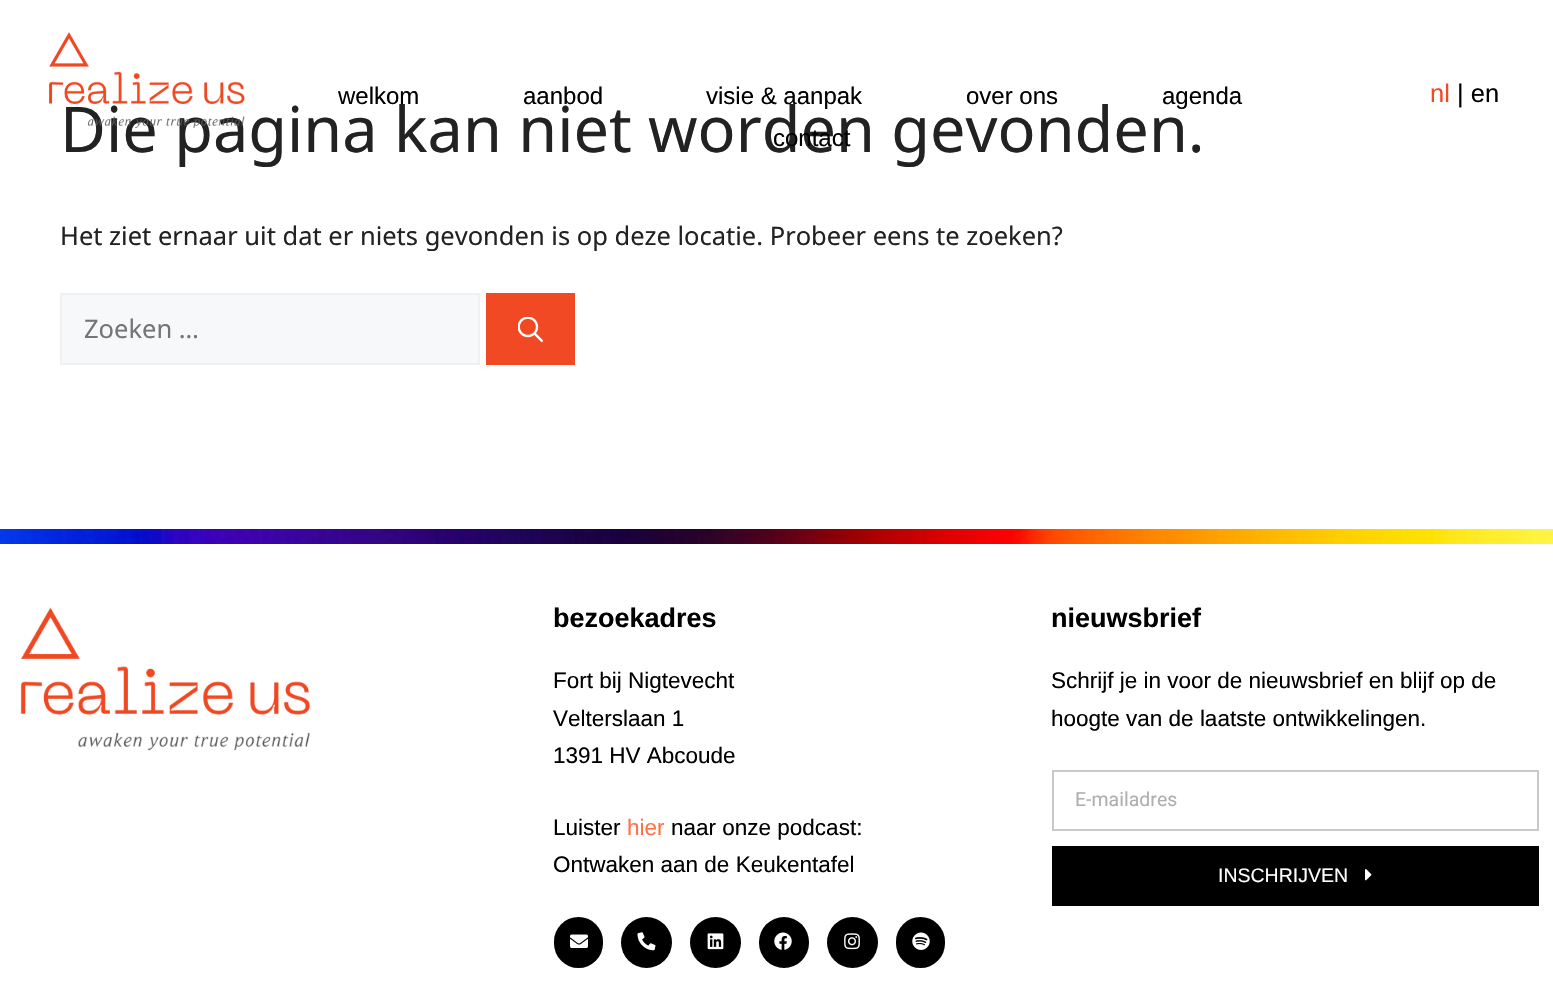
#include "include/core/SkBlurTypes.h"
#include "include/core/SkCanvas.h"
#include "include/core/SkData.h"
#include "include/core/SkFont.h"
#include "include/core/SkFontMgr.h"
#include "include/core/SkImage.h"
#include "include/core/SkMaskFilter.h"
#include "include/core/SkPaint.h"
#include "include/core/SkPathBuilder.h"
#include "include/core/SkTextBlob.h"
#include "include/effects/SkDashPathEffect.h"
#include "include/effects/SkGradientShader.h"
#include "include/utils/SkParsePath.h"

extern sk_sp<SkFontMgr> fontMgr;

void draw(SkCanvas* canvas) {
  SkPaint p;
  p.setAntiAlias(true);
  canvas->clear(SK_ColorWHITE);
  p.setColor(SkColorSetRGB(247, 248, 249));
  canvas->drawRect(SkRect::MakeLTRB(61, 294, 479, 364), p);
  p.setStyle(SkPaint::kStroke_Style);
  p.setStrokeWidth(2);
  p.setColor(SkColorSetRGB(240, 240, 240));
  canvas->drawRect(SkRect::MakeLTRB(61, 294, 479, 364), p);
  p.setStyle(SkPaint::kFill_Style);
  p.setColor(SkColorSetRGB(240, 73, 35));
  canvas->drawRect(SkRect::MakeLTRB(486, 293, 575, 365), p);
  canvas->drawImageRect(SkImages::DeferredFromEncodedData(SkData::MakeFromFileName("images/2.png")), SkRect::MakeLTRB(518, 317, 543, 342), SkSamplingOptions());
  canvas->drawImageRect(SkImages::DeferredFromEncodedData(SkData::MakeFromFileName("images/3.png")), SkRect::MakeLTRB(0, 529, 1553, 544), SkSamplingOptions());
  canvas->drawImageRect(SkImages::DeferredFromEncodedData(SkData::MakeFromFileName("images/4.png")), SkRect::MakeLTRB(20, 607, 311, 751), SkSamplingOptions());
  p.setColor(SK_ColorBLACK);
  canvas->drawRoundRect(SkRect::MakeLTRB(554, 917, 603, 968), 24.5f, 24.5f, p);
  canvas->drawImageRect(SkImages::DeferredFromEncodedData(SkData::MakeFromFileName("images/5.png")), SkRect::MakeLTRB(570, 934, 588, 948), SkSamplingOptions());
  canvas->drawCircle(646.5f, 942.5f, 25.5f, p);
  canvas->drawImageRect(SkImages::DeferredFromEncodedData(SkData::MakeFromFileName("images/6.png")), SkRect::MakeLTRB(637, 932, 656, 951), SkSamplingOptions());
  canvas->drawCircle(715.5f, 942.5f, 25.5f, p);
  canvas->drawImageRect(SkImages::DeferredFromEncodedData(SkData::MakeFromFileName("images/7.png")), SkRect::MakeLTRB(707, 933, 724, 950), SkSamplingOptions());
  canvas->drawRoundRect(SkRect::MakeLTRB(759, 917, 809, 968), 25, 25, p);
  canvas->drawImageRect(SkImages::DeferredFromEncodedData(SkData::MakeFromFileName("images/8.png")), SkRect::MakeLTRB(774, 932, 792, 950), SkSamplingOptions());
  canvas->drawCircle(852.5f, 942.5f, 25.5f, p);
  canvas->drawImageRect(SkImages::DeferredFromEncodedData(SkData::MakeFromFileName("images/9.png")), SkRect::MakeLTRB(844, 933, 860, 950), SkSamplingOptions());
  canvas->drawRoundRect(SkRect::MakeLTRB(896, 917, 945, 968), 24.5f, 24.5f, p);
  canvas->drawImageRect(SkImages::DeferredFromEncodedData(SkData::MakeFromFileName("images/10.png")), SkRect::MakeLTRB(912, 932, 930, 950), SkSamplingOptions());
  p.setStyle(SkPaint::kStroke_Style);
  p.setColor(SkColorSetRGB(201, 201, 201));
  canvas->drawRect(SkRect::MakeLTRB(1053, 771, 1538, 830), p);
  p.setStyle(SkPaint::kFill_Style);
  p.setColor(SK_ColorBLACK);
  canvas->drawRect(SkRect::MakeLTRB(1052, 846, 1539, 906), p);
  canvas->drawImageRect(SkImages::DeferredFromEncodedData(SkData::MakeFromFileName("images/11.png")), SkRect::MakeLTRB(1365, 869, 1372, 881), SkSamplingOptions());
  SkFont font1(fontMgr->matchFamilyStyle("Liberation Sans", SkFontStyle::Normal()), 24);
  font1.setSubpixel(true);
  canvas->drawString("welkom", 338, 104, font1, p);
  canvas->drawString("aanbod", 523, 104, font1, p);
  canvas->drawString("visie & aanpak", 706, 104, font1, p);
  canvas->drawString("over ons", 966, 104, font1, p);
  canvas->drawString("agenda", 1162, 104, font1, p);
  SkFont font2(fontMgr->matchFamilyStyle("Liberation Sans", SkFontStyle::Normal()), 25.5f);
  font2.setSubpixel(true);
  p.setColor(SkColorSetRGB(240, 73, 35));
  canvas->drawString("nl", 1430, 102, font2, p);
  p.setColor(SK_ColorBLACK);
  canvas->drawString("| en", 1457, 102, font2, p);
  SkFont font3(fontMgr->matchFamilyStyle("Noto Sans", SkFontStyle::Normal()), 63);
  font3.setSubpixel(true);
  p.setColor(SkColorSetRGB(34, 34, 34));
  canvas->drawString("Die pagina kan niet worden gevonden.", 60, 152, font3, p);
  p.setColor(SK_ColorBLACK);
  canvas->drawString("contact", 773, 146, font1, p);
  canvas->drawImageRect(SkImages::DeferredFromEncodedData(SkData::MakeFromFileName("images/1.png")), SkRect::MakeLTRB(49, 32, 245, 129), SkSamplingOptions());
  SkFont font4(fontMgr->matchFamilyStyle("Noto Sans", SkFontStyle::Normal()), 25.5f);
  font4.setSubpixel(true);
  p.setColor(SkColorSetRGB(34, 34, 34));
  canvas->drawString("Het ziet ernaar uit dat er niets gevonden is op deze locatie. Probeer eens te zoeken?", 60, 245, font4, p);
  p.setColor(SkColorSetRGB(117, 117, 117));
  canvas->drawString("Zoeken …", 84, 338, font4, p);
  SkFont font5(fontMgr->matchFamilyStyle("Liberation Sans", SkFontStyle::Bold()), 27);
  font5.setSubpixel(true);
  p.setColor(SK_ColorBLACK);
  canvas->drawString("bezoekadres", 553, 627, font5, p);
  SkFont font6(fontMgr->matchFamilyStyle("Liberation Sans", SkFontStyle::Normal()), 22.5f);
  font6.setSubpixel(true);
  canvas->drawString("Fort bij Nigtevecht", 553, 688, font6, p);
  canvas->drawString("Velterslaan 1", 553, 726, font6, p);
  canvas->drawString("1391 HV Abcoude", 553, 763, font6, p);
  canvas->drawString("Luister", 553, 835, font6, p);
  p.setColor(SkColorSetRGB(255, 112, 72));
  canvas->drawString("hier", 627, 835, font6, p);
  p.setColor(SK_ColorBLACK);
  canvas->drawString("naar onze podcast:", 671, 835, font6, p);
  canvas->drawString("Ontwaken aan de Keukentafel", 553, 872, font6, p);
  canvas->drawString("nieuwsbrief", 1051, 627, font5, p);
  canvas->drawString("Schrijf je in voor de nieuwsbrief en blijf op de", 1051, 688, font6, p);
  canvas->drawString("hoogte van de laatste ontwikkelingen.", 1051, 726, font6, p);
  SkFont font7(fontMgr->matchFamilyStyle("Roboto", SkFontStyle::Normal()), 19.5f);
  font7.setSubpixel(true);
  p.setColor(SkColorSetRGB(175, 175, 175));
  canvas->drawString("E-mailadres", 1075, 806, font7, p);
  SkFont font8(fontMgr->matchFamilyStyle("Liberation Sans", SkFontStyle::Normal()), 19.5f);
  font8.setSubpixel(true);
  p.setColor(SK_ColorWHITE);
  canvas->drawString("INSCHRIJVEN", 1218, 882, font8, p);
}
